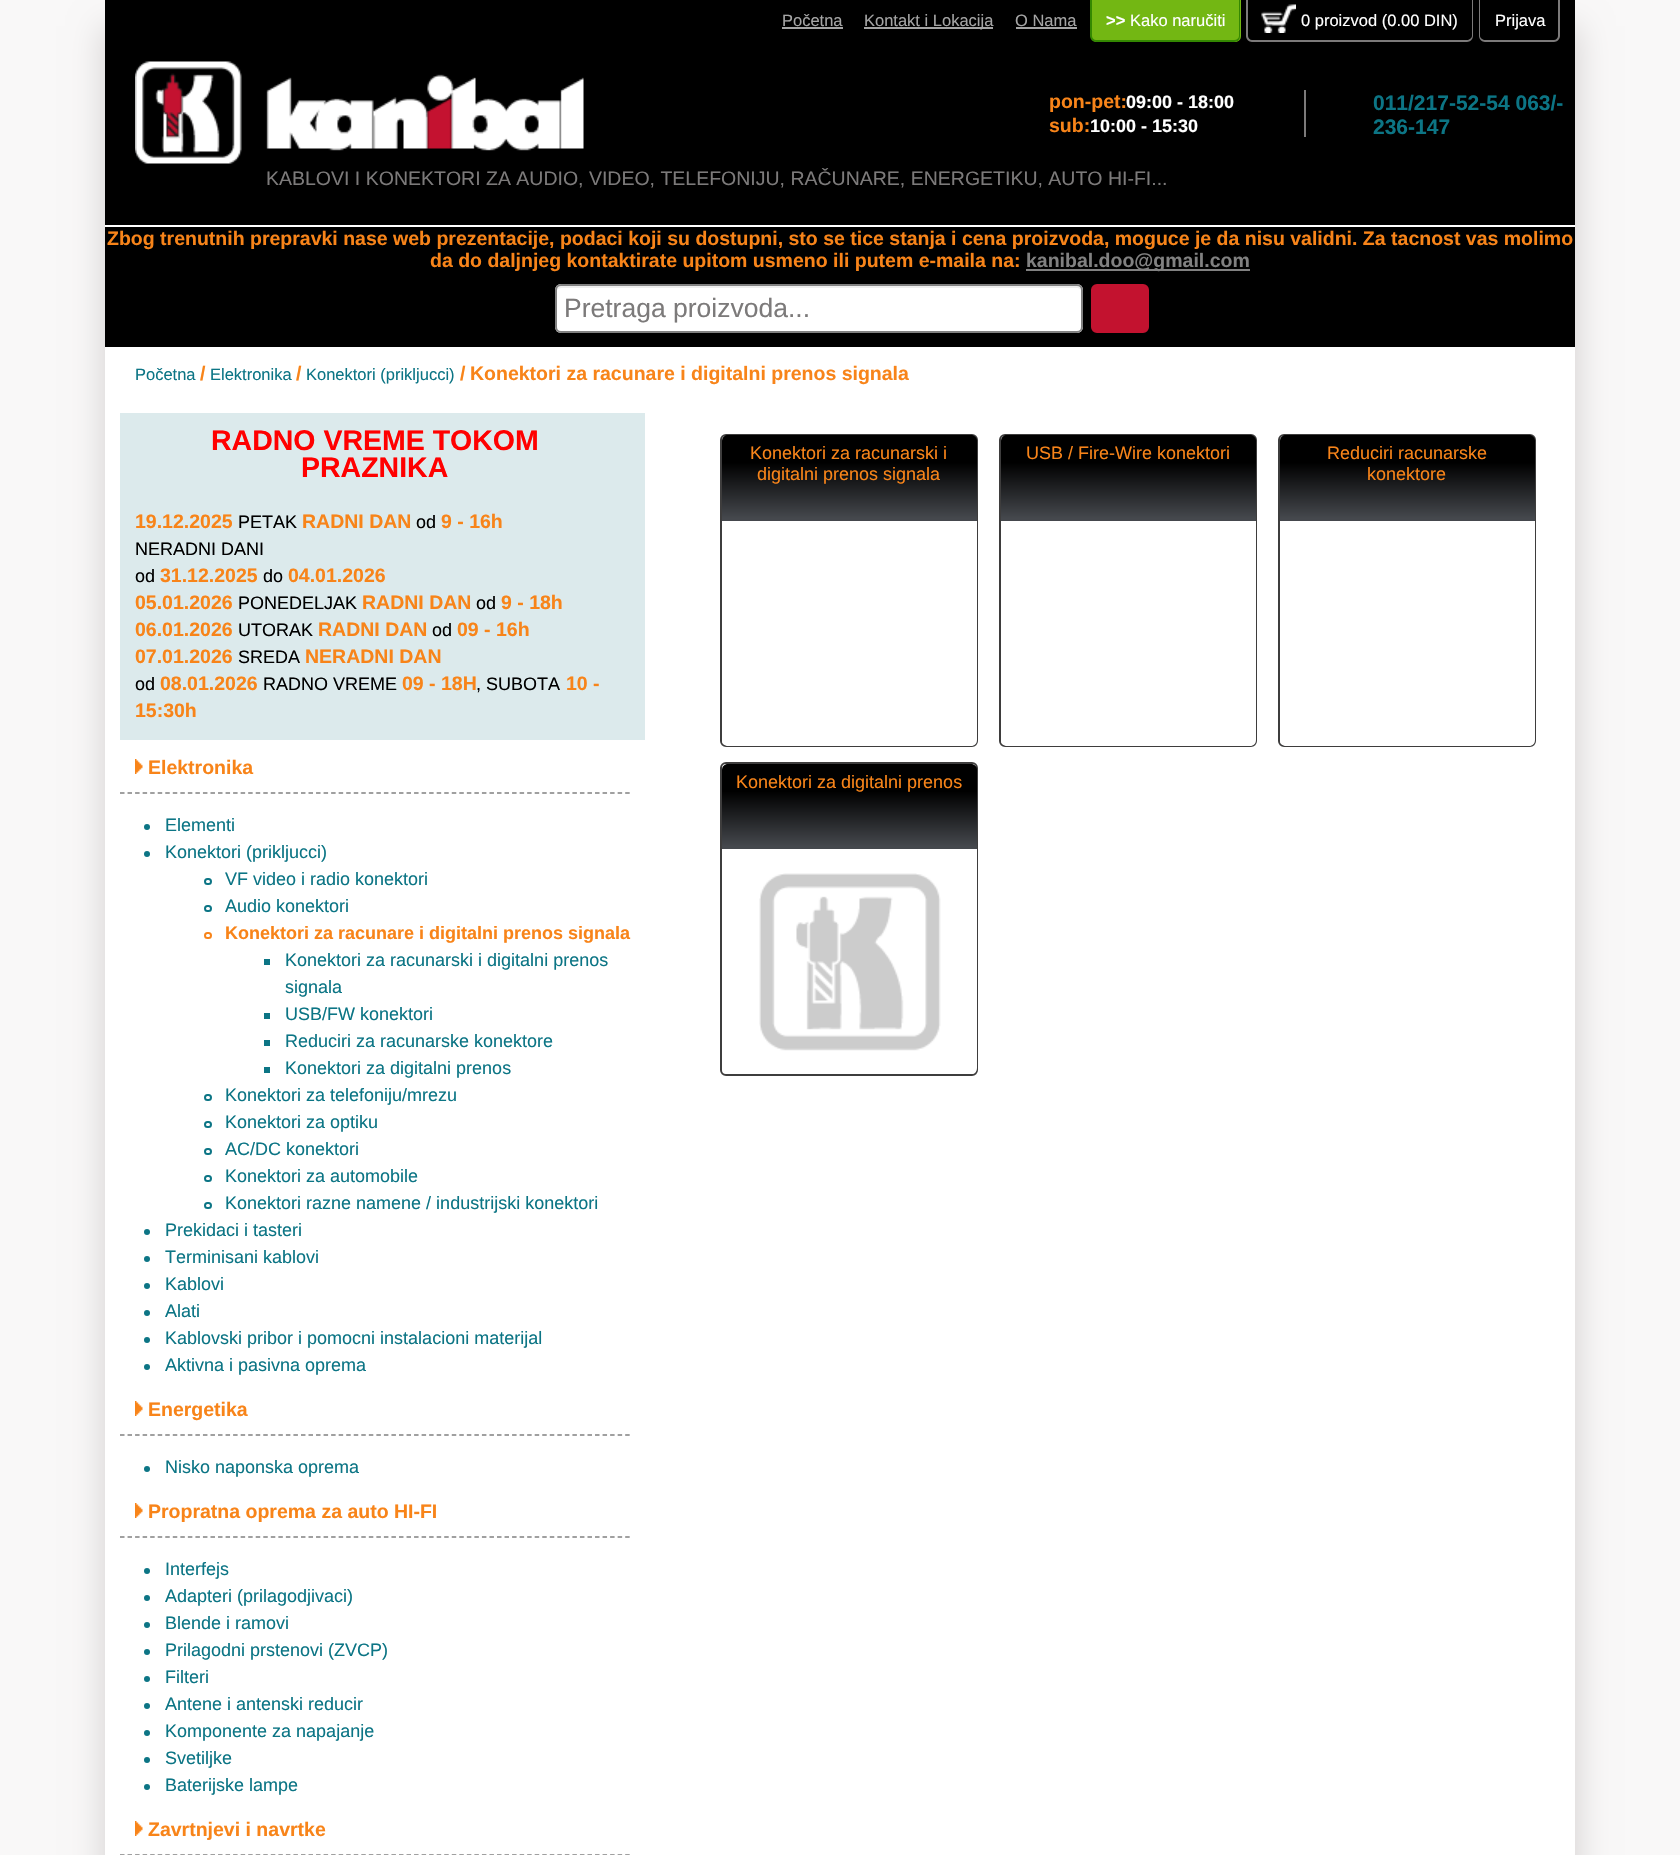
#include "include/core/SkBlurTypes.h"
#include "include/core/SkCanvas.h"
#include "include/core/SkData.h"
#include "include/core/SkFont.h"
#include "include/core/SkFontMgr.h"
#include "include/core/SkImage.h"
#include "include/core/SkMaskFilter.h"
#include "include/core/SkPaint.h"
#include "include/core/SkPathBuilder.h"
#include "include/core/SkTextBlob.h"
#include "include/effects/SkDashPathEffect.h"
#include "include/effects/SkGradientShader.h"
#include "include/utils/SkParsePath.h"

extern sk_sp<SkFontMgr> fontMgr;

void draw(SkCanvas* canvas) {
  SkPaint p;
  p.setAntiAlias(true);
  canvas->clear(SkColorSetRGB(249, 248, 248));
  p.setColor(SkColorSetRGB(218, 215, 215));
  p.setMaskFilter(SkMaskFilter::MakeBlur(kNormal_SkBlurStyle, 15));
  canvas->drawRect(SkRect::MakeLTRB(101, 26, 1580, 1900), p);
  p.setMaskFilter(nullptr);
  p.setColor(SK_ColorWHITE);
  canvas->drawRect(SkRect::MakeLTRB(105, 347, 1575, 1855), p);
  p.setColor(SK_ColorBLACK);
  canvas->drawRect(SkRect::MakeLTRB(105, 0, 1575, 225), p);
  p.setColor(SkColorSetRGB(165, 165, 165));
  canvas->drawRect(SkRect::MakeLTRB(782, 27, 843, 29), p);
  canvas->drawRect(SkRect::MakeLTRB(864, 27, 993, 29), p);
  canvas->drawRect(SkRect::MakeLTRB(1016, 27, 1077, 29), p);
  p.setColor(SkColorSetRGB(115, 183, 19));
  canvas->drawPath(SkPathBuilder().moveTo(1091, 0).lineTo(1241, 0).lineTo(1241, 36).cubicTo(1241, 39.5f, 1238.5f, 42, 1235, 42).lineTo(1097, 42).cubicTo(1093.5f, 42, 1091, 39.5f, 1091, 36).close().detach(), p);
  p.setColor(SkColorSetRGB(52, 136, 1));
  canvas->drawPath(SkPathBuilder(SkPathFillType::kEvenOdd).moveTo(1090, 0).lineTo(1240, 0).lineTo(1240, 36).cubicTo(1240, 39, 1238, 42, 1234, 42).lineTo(1096, 42).cubicTo(1093, 42, 1090, 39, 1090, 36).close().moveTo(1092, 0).lineTo(1239, 0).lineTo(1239, 36).cubicTo(1239, 38, 1237, 40, 1234, 40).lineTo(1096, 40).cubicTo(1094, 40, 1092, 38, 1092, 36).close().detach(), p);
  p.setColor(SkColorSetRGB(124, 122, 122));
  canvas->drawPath(SkPathBuilder(SkPathFillType::kEvenOdd).moveTo(1246, 0).lineTo(1473, 0).lineTo(1473, 36).cubicTo(1473, 39, 1470, 42, 1467, 42).lineTo(1252, 42).cubicTo(1249, 42, 1246, 39, 1246, 36).close().moveTo(1248, 0).lineTo(1472, 0).lineTo(1472, 36).cubicTo(1472, 38, 1469, 40, 1467, 40).lineTo(1252, 40).cubicTo(1250, 40, 1248, 38, 1248, 36).close().detach(), p);
  canvas->drawImageRect(SkImages::DeferredFromEncodedData(SkData::MakeFromFileName("images/1.png")), SkRect::MakeLTRB(1261, 4, 1296, 33), SkSamplingOptions());
  canvas->drawPath(SkPathBuilder(SkPathFillType::kEvenOdd).moveTo(1479, 0).lineTo(1560, 0).lineTo(1560, 36).cubicTo(1560, 39, 1557, 42, 1554, 42).lineTo(1485, 42).cubicTo(1482, 42, 1479, 39, 1479, 36).close().moveTo(1480, 0).lineTo(1558, 0).lineTo(1558, 36).cubicTo(1558, 38, 1556, 40, 1554, 40).lineTo(1485, 40).cubicTo(1483, 40, 1480, 38, 1480, 36).close().detach(), p);
  p.setColor(SK_ColorWHITE);
  canvas->drawRect(SkRect::MakeLTRB(105, 225, 1575, 227), p);
  canvas->drawImageRect(SkImages::DeferredFromEncodedData(SkData::MakeFromFileName("images/2.png")), SkRect::MakeLTRB(135, 61, 584, 164), SkSamplingOptions());
  p.setColor(SkColorSetRGB(124, 122, 122));
  canvas->drawRect(SkRect::MakeLTRB(1304, 90, 1306, 137), p);
  p.setColor(SK_ColorBLACK);
  canvas->drawRect(SkRect::MakeLTRB(105, 227, 1575, 347), p);
  p.setColor(SkColorSetRGB(129, 129, 129));
  canvas->drawRect(SkRect::MakeLTRB(1026, 269, 1250, 271), p);
  p.setColor(SK_ColorWHITE);
  canvas->drawRoundRect(SkRect::MakeLTRB(555, 284, 1083, 333), 6, 6, p);
  p.setColor(SkColorSetRGB(238, 238, 238));
  canvas->drawPath(SkPathBuilder().moveTo(561, 288).lineTo(1077, 288).cubicTo(1079, 288, 1082, 290, 1082, 292).cubicTo(1082, 289, 1081, 285, 1077, 285).lineTo(562, 285).cubicTo(559, 285, 557, 287, 557, 290).cubicTo(558, 289, 560, 288, 561, 288).close().detach(), p);
  p.setStyle(SkPaint::kStroke_Style);
  p.setStrokeWidth(2);
  p.setColor(SkColorSetRGB(129, 129, 129));
  canvas->drawRoundRect(SkRect::MakeLTRB(556, 285, 1082, 332), 5, 5, p);
  p.setStyle(SkPaint::kFill_Style);
  p.setColor(SkColorSetRGB(195, 18, 47));
  canvas->drawRoundRect(SkRect::MakeLTRB(1092, 285, 1148, 332), 5, 5, p);
  p.setStyle(SkPaint::kStroke_Style);
  canvas->drawRoundRect(SkRect::MakeLTRB(1092, 285, 1148, 332), 5, 5, p);
  p.setStyle(SkPaint::kFill_Style);
  p.setColor(SkColorSetRGB(220, 234, 236));
  canvas->drawRect(SkRect::MakeLTRB(120, 413, 645, 740), p);
  p.setStyle(SkPaint::kStroke_Style);
  p.setStrokeWidth(1.5f);
  p.setColor(SkColorSetRGB(129, 129, 129));
  p.setPathEffect(SkDashPathEffect::Make({{4.5f, 3.04f}}, 0));
  canvas->drawPath(SkPathBuilder().moveTo(120, 793).lineTo(630, 793).detach(), p);
  p.setPathEffect(nullptr);
  canvas->drawImageRect(SkImages::DeferredFromEncodedData(SkData::MakeFromFileName("images/3.png")), SkRect::MakeLTRB(135, 759, 143, 774), SkSamplingOptions());
  p.setStyle(SkPaint::kFill_Style);
  p.setColor(SkColorSetRGB(12, 117, 133));
  canvas->drawCircle(147, 827, 3, p);
  canvas->drawCircle(147, 854, 3, p);
  p.setStyle(SkPaint::kStroke_Style);
  p.setStrokeWidth(2);
  canvas->drawRoundRect(SkRect::MakeLTRB(205, 879, 211, 884), 2.5f, 2.5f, p);
  canvas->drawRoundRect(SkRect::MakeLTRB(205, 906, 211, 911), 2.5f, 2.5f, p);
  p.setColor(SkColorSetRGB(248, 132, 25));
  canvas->drawRoundRect(SkRect::MakeLTRB(205, 933, 211, 938), 2.5f, 2.5f, p);
  p.setStyle(SkPaint::kFill_Style);
  p.setColor(SkColorSetRGB(12, 117, 133));
  canvas->drawRect(SkRect::MakeLTRB(264, 959, 270, 965), p);
  canvas->drawRect(SkRect::MakeLTRB(264, 1013, 270, 1019), p);
  canvas->drawRect(SkRect::MakeLTRB(264, 1040, 270, 1046), p);
  canvas->drawRect(SkRect::MakeLTRB(264, 1067, 270, 1073), p);
  p.setStyle(SkPaint::kStroke_Style);
  canvas->drawRoundRect(SkRect::MakeLTRB(205, 1095, 211, 1100), 2.5f, 2.5f, p);
  canvas->drawRoundRect(SkRect::MakeLTRB(205, 1122, 211, 1127), 2.5f, 2.5f, p);
  canvas->drawRoundRect(SkRect::MakeLTRB(205, 1149, 211, 1154), 2.5f, 2.5f, p);
  canvas->drawRoundRect(SkRect::MakeLTRB(205, 1176, 211, 1181), 2.5f, 2.5f, p);
  canvas->drawRoundRect(SkRect::MakeLTRB(205, 1203, 211, 1208), 2.5f, 2.5f, p);
  p.setStyle(SkPaint::kFill_Style);
  canvas->drawCircle(147, 1232, 3, p);
  canvas->drawCircle(147, 1259, 3, p);
  canvas->drawCircle(147, 1286, 3, p);
  canvas->drawCircle(147, 1313, 3, p);
  canvas->drawCircle(147, 1340, 3, p);
  canvas->drawCircle(147, 1367, 3, p);
  p.setStyle(SkPaint::kStroke_Style);
  p.setStrokeWidth(1.5f);
  p.setColor(SkColorSetRGB(129, 129, 129));
  p.setPathEffect(SkDashPathEffect::Make({{4.5f, 3.04f}}, 0));
  canvas->drawPath(SkPathBuilder().moveTo(120, 1435).lineTo(630, 1435).detach(), p);
  p.setPathEffect(nullptr);
  canvas->drawImageRect(SkImages::DeferredFromEncodedData(SkData::MakeFromFileName("images/3.png")), SkRect::MakeLTRB(135, 1401, 143, 1416), SkSamplingOptions());
  p.setStyle(SkPaint::kFill_Style);
  p.setColor(SkColorSetRGB(12, 117, 133));
  canvas->drawCircle(147, 1469, 3, p);
  p.setStyle(SkPaint::kStroke_Style);
  p.setColor(SkColorSetRGB(129, 129, 129));
  p.setPathEffect(SkDashPathEffect::Make({{4.5f, 3.04f}}, 0));
  canvas->drawPath(SkPathBuilder().moveTo(120, 1537).lineTo(630, 1537).detach(), p);
  p.setPathEffect(nullptr);
  canvas->drawImageRect(SkImages::DeferredFromEncodedData(SkData::MakeFromFileName("images/3.png")), SkRect::MakeLTRB(135, 1503, 143, 1518), SkSamplingOptions());
  p.setStyle(SkPaint::kFill_Style);
  p.setColor(SkColorSetRGB(12, 117, 133));
  canvas->drawCircle(147, 1571, 3, p);
  canvas->drawCircle(147, 1598, 3, p);
  canvas->drawCircle(147, 1625, 3, p);
  canvas->drawCircle(147, 1652, 3, p);
  canvas->drawCircle(147, 1679, 3, p);
  canvas->drawCircle(147, 1706, 3, p);
  canvas->drawCircle(147, 1733, 3, p);
  canvas->drawCircle(147, 1760, 3, p);
  canvas->drawCircle(147, 1787, 3, p);
  p.setStyle(SkPaint::kStroke_Style);
  p.setColor(SkColorSetRGB(129, 129, 129));
  p.setPathEffect(SkDashPathEffect::Make({{4.5f, 3.04f}}, 0));
  canvas->drawPath(SkPathBuilder().moveTo(120, 1855).lineTo(630, 1855).detach(), p);
  p.setPathEffect(nullptr);
  canvas->drawImageRect(SkImages::DeferredFromEncodedData(SkData::MakeFromFileName("images/3.png")), SkRect::MakeLTRB(135, 1821, 143, 1836), SkSamplingOptions());
  p.setStrokeWidth(2);
  p.setColor(SkColorSetRGB(62, 61, 61));
  canvas->drawRoundRect(SkRect::MakeLTRB(721, 435, 977, 746), 5, 5, p);
  p.setStyle(SkPaint::kFill_Style);
  {
    const SkColor colors[] = {SK_ColorBLACK, SkColorSetRGB(69, 72, 77)};
    const float stops[] = {0.32f, 0.97f};
    const SkPoint ends[] = {{849, 435}, {849, 521}};
    p.setShader(SkGradientShader::MakeLinear(ends, colors, stops, 2, SkTileMode::kClamp));
    p.setAlpha(255);
  }
  canvas->drawPath(SkPathBuilder().moveTo(728, 435).lineTo(971, 435).cubicTo(974.5f, 435, 977, 437.5f, 977, 441).lineTo(977, 521).lineTo(722, 521).lineTo(722, 441).cubicTo(722, 437.5f, 724.5f, 435, 728, 435).close().detach(), p);
  p.setShader(nullptr);
  p.setColor(SK_ColorWHITE);
  canvas->drawPath(SkPathBuilder().moveTo(722, 521).lineTo(977, 521).lineTo(977, 740).cubicTo(977, 743.5f, 974.5f, 746, 971, 746).lineTo(728, 746).cubicTo(724.5f, 746, 722, 743.5f, 722, 740).close().detach(), p);
  p.setStyle(SkPaint::kStroke_Style);
  p.setColor(SkColorSetRGB(62, 61, 61));
  canvas->drawRoundRect(SkRect::MakeLTRB(1000, 435, 1256, 746), 5, 5, p);
  p.setStyle(SkPaint::kFill_Style);
  {
    const SkColor colors[] = {SK_ColorBLACK, SkColorSetRGB(69, 72, 77)};
    const float stops[] = {0.32f, 0.97f};
    const SkPoint ends[] = {{1128, 435}, {1128, 521}};
    p.setShader(SkGradientShader::MakeLinear(ends, colors, stops, 2, SkTileMode::kClamp));
    p.setAlpha(255);
  }
  canvas->drawPath(SkPathBuilder().moveTo(1007, 435).lineTo(1250, 435).cubicTo(1253.5f, 435, 1256, 437.5f, 1256, 441).lineTo(1256, 521).lineTo(1001, 521).lineTo(1001, 441).cubicTo(1001, 437.5f, 1003.5f, 435, 1007, 435).close().detach(), p);
  p.setShader(nullptr);
  p.setColor(SK_ColorWHITE);
  canvas->drawPath(SkPathBuilder().moveTo(1001, 521).lineTo(1256, 521).lineTo(1256, 740).cubicTo(1256, 743.5f, 1253.5f, 746, 1250, 746).lineTo(1007, 746).cubicTo(1003.5f, 746, 1001, 743.5f, 1001, 740).close().detach(), p);
  p.setStyle(SkPaint::kStroke_Style);
  p.setColor(SkColorSetRGB(62, 61, 61));
  canvas->drawRoundRect(SkRect::MakeLTRB(1279, 435, 1535, 746), 5, 5, p);
  p.setStyle(SkPaint::kFill_Style);
  {
    const SkColor colors[] = {SK_ColorBLACK, SkColorSetRGB(69, 72, 77)};
    const float stops[] = {0.32f, 0.97f};
    const SkPoint ends[] = {{1407, 435}, {1407, 521}};
    p.setShader(SkGradientShader::MakeLinear(ends, colors, stops, 2, SkTileMode::kClamp));
    p.setAlpha(255);
  }
  canvas->drawPath(SkPathBuilder().moveTo(1286, 435).lineTo(1529, 435).cubicTo(1532.5f, 435, 1535, 437.5f, 1535, 441).lineTo(1535, 521).lineTo(1280, 521).lineTo(1280, 441).cubicTo(1280, 437.5f, 1282.5f, 435, 1286, 435).close().detach(), p);
  p.setShader(nullptr);
  p.setColor(SK_ColorWHITE);
  canvas->drawPath(SkPathBuilder().moveTo(1280, 521).lineTo(1535, 521).lineTo(1535, 740).cubicTo(1535, 743.5f, 1532.5f, 746, 1529, 746).lineTo(1286, 746).cubicTo(1282.5f, 746, 1280, 743.5f, 1280, 740).close().detach(), p);
  p.setStyle(SkPaint::kStroke_Style);
  p.setColor(SkColorSetRGB(62, 61, 61));
  canvas->drawRoundRect(SkRect::MakeLTRB(721, 763, 977, 1075), 5, 5, p);
  p.setStyle(SkPaint::kFill_Style);
  {
    const SkColor colors[] = {SK_ColorBLACK, SkColorSetRGB(69, 72, 77)};
    const float stops[] = {0.32f, 0.97f};
    const SkPoint ends[] = {{849, 764}, {849, 849}};
    p.setShader(SkGradientShader::MakeLinear(ends, colors, stops, 2, SkTileMode::kClamp));
    p.setAlpha(255);
  }
  canvas->drawPath(SkPathBuilder().moveTo(728, 764).lineTo(971, 764).cubicTo(974.5f, 764, 977, 766.5f, 977, 770).lineTo(977, 849).lineTo(722, 849).lineTo(722, 770).cubicTo(722, 766.5f, 724.5f, 764, 728, 764).close().detach(), p);
  p.setShader(nullptr);
  p.setColor(SK_ColorWHITE);
  canvas->drawPath(SkPathBuilder().moveTo(722, 849).lineTo(977, 849).lineTo(977, 1068).cubicTo(977, 1071.5f, 974.5f, 1074, 971, 1074).lineTo(728, 1074).cubicTo(724.5f, 1074, 722, 1071.5f, 722, 1068).close().detach(), p);
  canvas->drawImageRect(SkImages::DeferredFromEncodedData(SkData::MakeFromFileName("images/4.png")), SkRect::MakeLTRB(759, 873, 941, 1051), SkSamplingOptions());
  SkFont font1(fontMgr->matchFamilyStyle("Liberation Sans", SkFontStyle::Normal()), 16.5f);
  font1.setSubpixel(true);
  p.setColor(SkColorSetRGB(165, 165, 165));
  canvas->drawString("Početna", 782, 26, font1, p);
  canvas->drawString("Kontakt i Lokacija", 864, 26, font1, p);
  canvas->drawString("O Nama", 1015, 26, font1, p);
  SkFont font2(fontMgr->matchFamilyStyle("Liberation Sans", SkFontStyle::Bold()), 16.5f);
  font2.setSubpixel(true);
  p.setColor(SK_ColorWHITE);
  canvas->drawString(">>", 1106, 26, font2, p);
  canvas->drawString("Kako naručiti", 1130, 26, font1, p);
  canvas->drawString("0 proizvod (0.00 DIN)", 1301, 26, font1, p);
  canvas->drawString("Prijava", 1495, 26, font1, p);
  SkFont font3(fontMgr->matchFamilyStyle("Liberation Sans", SkFontStyle::Bold()), 19.5f);
  font3.setSubpixel(true);
  p.setColor(SkColorSetRGB(248, 132, 25));
  canvas->drawString("pon-pet:", 1049, 108, font3, p);
  SkFont font4(fontMgr->matchFamilyStyle("Liberation Sans", SkFontStyle::Bold()), 18);
  font4.setSubpixel(true);
  p.setColor(SK_ColorWHITE);
  canvas->drawString("09:00 - 18:00", 1126, 108, font4, p);
  p.setColor(SkColorSetRGB(248, 132, 25));
  canvas->drawString("sub:", 1049, 132, font3, p);
  p.setColor(SK_ColorWHITE);
  canvas->drawString("10:00 - 15:30", 1090, 132, font4, p);
  SkFont font5(fontMgr->matchFamilyStyle("Liberation Sans", SkFontStyle::Bold()), 21);
  font5.setSubpixel(true);
  p.setColor(SkColorSetRGB(12, 117, 133));
  canvas->drawString("011/217-52-54 063/-", 1373, 110, font5, p);
  canvas->drawString("236-147", 1373, 134, font5, p);
  SkFont font6(fontMgr->matchFamilyStyle("Liberation Sans", SkFontStyle::Normal()), 19.5f);
  font6.setSubpixel(true);
  p.setColor(SkColorSetRGB(124, 122, 122));
  canvas->drawString("KABLOVI I KONEKTORI ZA AUDIO, VIDEO, TELEFONIJU, RAČUNARE, ENERGETIKU, AUTO HI-FI...", 266, 185, font6, p);
  p.setColor(SkColorSetRGB(248, 132, 25));
  canvas->drawString("Zbog trenutnih prepravki nase web prezentacije, podaci koji su dostupni, sto se tice stanja i cena proizvoda, moguce je da nisu validni. Za tacnost vas molimo", 107, 245, font3, p);
  canvas->drawString("da do daljnjeg kontaktirate upitom usmeno ili putem e-maila na:", 430, 267, font3, p);
  p.setColor(SkColorSetRGB(129, 129, 129));
  canvas->drawString("kanibal.doo@gmail.com", 1026, 267, font3, p);
  SkFont font7(fontMgr->matchFamilyStyle("Liberation Sans", SkFontStyle::Normal()), 26.5f);
  font7.setSubpixel(true);
  p.setColor(SkColorSetRGB(124, 122, 122));
  canvas->drawString("Pretraga proizvoda...", 564, 317, font7, p);
  p.setColor(SkColorSetRGB(12, 117, 133));
  canvas->drawString("Početna", 135, 380, font1, p);
  p.setColor(SkColorSetRGB(248, 132, 25));
  canvas->drawString("/", 200, 380, font3, p);
  p.setColor(SkColorSetRGB(12, 117, 133));
  canvas->drawString("Elektronika", 210, 380, font1, p);
  p.setColor(SkColorSetRGB(248, 132, 25));
  canvas->drawString("/", 296, 380, font3, p);
  p.setColor(SkColorSetRGB(12, 117, 133));
  canvas->drawString("Konektori (prikljucci)", 306, 380, font1, p);
  p.setColor(SkColorSetRGB(248, 132, 25));
  canvas->drawString("/", 460, 380, font3, p);
  canvas->drawString("Konektori za racunare i digitalni prenos signala", 470, 380, font3, p);
  SkFont font8(fontMgr->matchFamilyStyle("Liberation Sans", SkFontStyle::Bold()), 28.5f);
  font8.setSubpixel(true);
  p.setColor(SkColorSetRGB(255, 0, 0));
  canvas->drawString("RADNO VREME TOKOM", 211, 450, font8, p);
  canvas->drawString("PRAZNIKA", 301, 477, font8, p);
  p.setColor(SkColorSetRGB(248, 132, 25));
  canvas->drawString("19.12.2025", 135, 528, font3, p);
  SkFont font9(fontMgr->matchFamilyStyle("Liberation Sans", SkFontStyle::Normal()), 18);
  font9.setSubpixel(true);
  p.setColor(SK_ColorBLACK);
  canvas->drawString("PETAK", 238, 528, font9, p);
  p.setColor(SkColorSetRGB(248, 132, 25));
  canvas->drawString("RADNI DAN", 302, 528, font3, p);
  p.setColor(SK_ColorBLACK);
  canvas->drawString("od", 416, 528, font9, p);
  p.setColor(SkColorSetRGB(248, 132, 25));
  canvas->drawString("9 - 16h", 441, 528, font3, p);
  p.setColor(SK_ColorBLACK);
  canvas->drawString("NERADNI DANI", 135, 555, font9, p);
  canvas->drawString("od", 135, 582, font9, p);
  p.setColor(SkColorSetRGB(248, 132, 25));
  canvas->drawString("31.12.2025", 160, 582, font3, p);
  p.setColor(SK_ColorBLACK);
  canvas->drawString("do", 263, 582, font9, p);
  p.setColor(SkColorSetRGB(248, 132, 25));
  canvas->drawString("04.01.2026", 288, 582, font3, p);
  canvas->drawString("05.01.2026", 135, 609, font3, p);
  p.setColor(SK_ColorBLACK);
  canvas->drawString("PONEDELJAK", 238, 609, font9, p);
  p.setColor(SkColorSetRGB(248, 132, 25));
  canvas->drawString("RADNI DAN", 362, 609, font3, p);
  p.setColor(SK_ColorBLACK);
  canvas->drawString("od", 476, 609, font9, p);
  p.setColor(SkColorSetRGB(248, 132, 25));
  canvas->drawString("9 - 18h", 501, 609, font3, p);
  canvas->drawString("06.01.2026", 135, 636, font3, p);
  p.setColor(SK_ColorBLACK);
  canvas->drawString("UTORAK", 238, 636, font9, p);
  p.setColor(SkColorSetRGB(248, 132, 25));
  canvas->drawString("RADNI DAN", 318, 636, font3, p);
  p.setColor(SK_ColorBLACK);
  canvas->drawString("od", 432, 636, font9, p);
  p.setColor(SkColorSetRGB(248, 132, 25));
  canvas->drawString("09 - 16h", 457, 636, font3, p);
  canvas->drawString("07.01.2026", 135, 663, font3, p);
  p.setColor(SK_ColorBLACK);
  canvas->drawString("SREDA", 238, 663, font9, p);
  p.setColor(SkColorSetRGB(248, 132, 25));
  canvas->drawString("NERADNI DAN", 305, 663, font3, p);
  p.setColor(SK_ColorBLACK);
  canvas->drawString("od", 135, 690, font9, p);
  p.setColor(SkColorSetRGB(248, 132, 25));
  canvas->drawString("08.01.2026", 160, 690, font3, p);
  p.setColor(SK_ColorBLACK);
  canvas->drawString("RADNO VREME", 263, 690, font9, p);
  p.setColor(SkColorSetRGB(248, 132, 25));
  canvas->drawString("09 - 18H", 402, 690, font3, p);
  p.setColor(SK_ColorBLACK);
  canvas->drawString(", SUBOTA", 476, 690, font9, p);
  p.setColor(SkColorSetRGB(248, 132, 25));
  canvas->drawString("10 -", 566, 690, font3, p);
  canvas->drawString("15:30h", 135, 717, font3, p);
  canvas->drawString("Elektronika", 148, 774, font3, p);
  p.setColor(SkColorSetRGB(12, 117, 133));
  canvas->drawString("Elementi", 165, 831, font9, p);
  canvas->drawString("Konektori (prikljucci)", 165, 858, font9, p);
  canvas->drawString("VF video i radio konektori", 225, 885, font9, p);
  canvas->drawString("Audio konektori", 225, 912, font9, p);
  p.setColor(SkColorSetRGB(248, 132, 25));
  canvas->drawString("Konektori za racunare i digitalni prenos signala", 225, 939, font4, p);
  p.setColor(SkColorSetRGB(12, 117, 133));
  canvas->drawString("Konektori za racunarski i digitalni prenos", 285, 966, font9, p);
  canvas->drawString("signala", 285, 993, font9, p);
  canvas->drawString("USB/FW konektori", 285, 1020, font9, p);
  canvas->drawString("Reduciri za racunarske konektore", 285, 1047, font9, p);
  canvas->drawString("Konektori za digitalni prenos", 285, 1074, font9, p);
  canvas->drawString("Konektori za telefoniju/mrezu", 225, 1101, font9, p);
  canvas->drawString("Konektori za optiku", 225, 1128, font9, p);
  canvas->drawString("AC/DC konektori", 225, 1155, font9, p);
  canvas->drawString("Konektori za automobile", 225, 1182, font9, p);
  canvas->drawString("Konektori razne namene / industrijski konektori", 225, 1209, font9, p);
  canvas->drawString("Prekidaci i tasteri", 165, 1236, font9, p);
  canvas->drawString("Terminisani kablovi", 165, 1263, font9, p);
  canvas->drawString("Kablovi", 165, 1290, font9, p);
  canvas->drawString("Alati", 165, 1317, font9, p);
  canvas->drawString("Kablovski pribor i pomocni instalacioni materijal", 165, 1344, font9, p);
  canvas->drawString("Aktivna i pasivna oprema", 165, 1371, font9, p);
  p.setColor(SkColorSetRGB(248, 132, 25));
  canvas->drawString("Energetika", 148, 1416, font3, p);
  p.setColor(SkColorSetRGB(12, 117, 133));
  canvas->drawString("Nisko naponska oprema", 165, 1473, font9, p);
  p.setColor(SkColorSetRGB(248, 132, 25));
  canvas->drawString("Propratna oprema za auto HI-FI", 148, 1518, font3, p);
  p.setColor(SkColorSetRGB(12, 117, 133));
  canvas->drawString("Interfejs", 165, 1575, font9, p);
  canvas->drawString("Adapteri (prilagodjivaci)", 165, 1602, font9, p);
  canvas->drawString("Blende i ramovi", 165, 1629, font9, p);
  canvas->drawString("Prilagodni prstenovi (ZVCP)", 165, 1656, font9, p);
  canvas->drawString("Filteri", 165, 1683, font9, p);
  canvas->drawString("Antene i antenski reducir", 165, 1710, font9, p);
  canvas->drawString("Komponente za napajanje", 165, 1737, font9, p);
  canvas->drawString("Svetiljke", 165, 1764, font9, p);
  canvas->drawString("Baterijske lampe", 165, 1791, font9, p);
  p.setColor(SkColorSetRGB(248, 132, 25));
  canvas->drawString("Zavrtnjevi i navrtke", 148, 1836, font3, p);
  canvas->drawString("Konektori za racunarski i", 750, 459, font9, p);
  canvas->drawString("digitalni prenos signala", 757, 480, font9, p);
  canvas->drawString("USB / Fire-Wire konektori", 1026, 459, font9, p);
  canvas->drawString("Reduciri racunarske", 1327, 459, font9, p);
  canvas->drawString("konektore", 1367, 480, font9, p);
  canvas->drawString("Konektori za digitalni prenos", 736, 788, font9, p);
}
